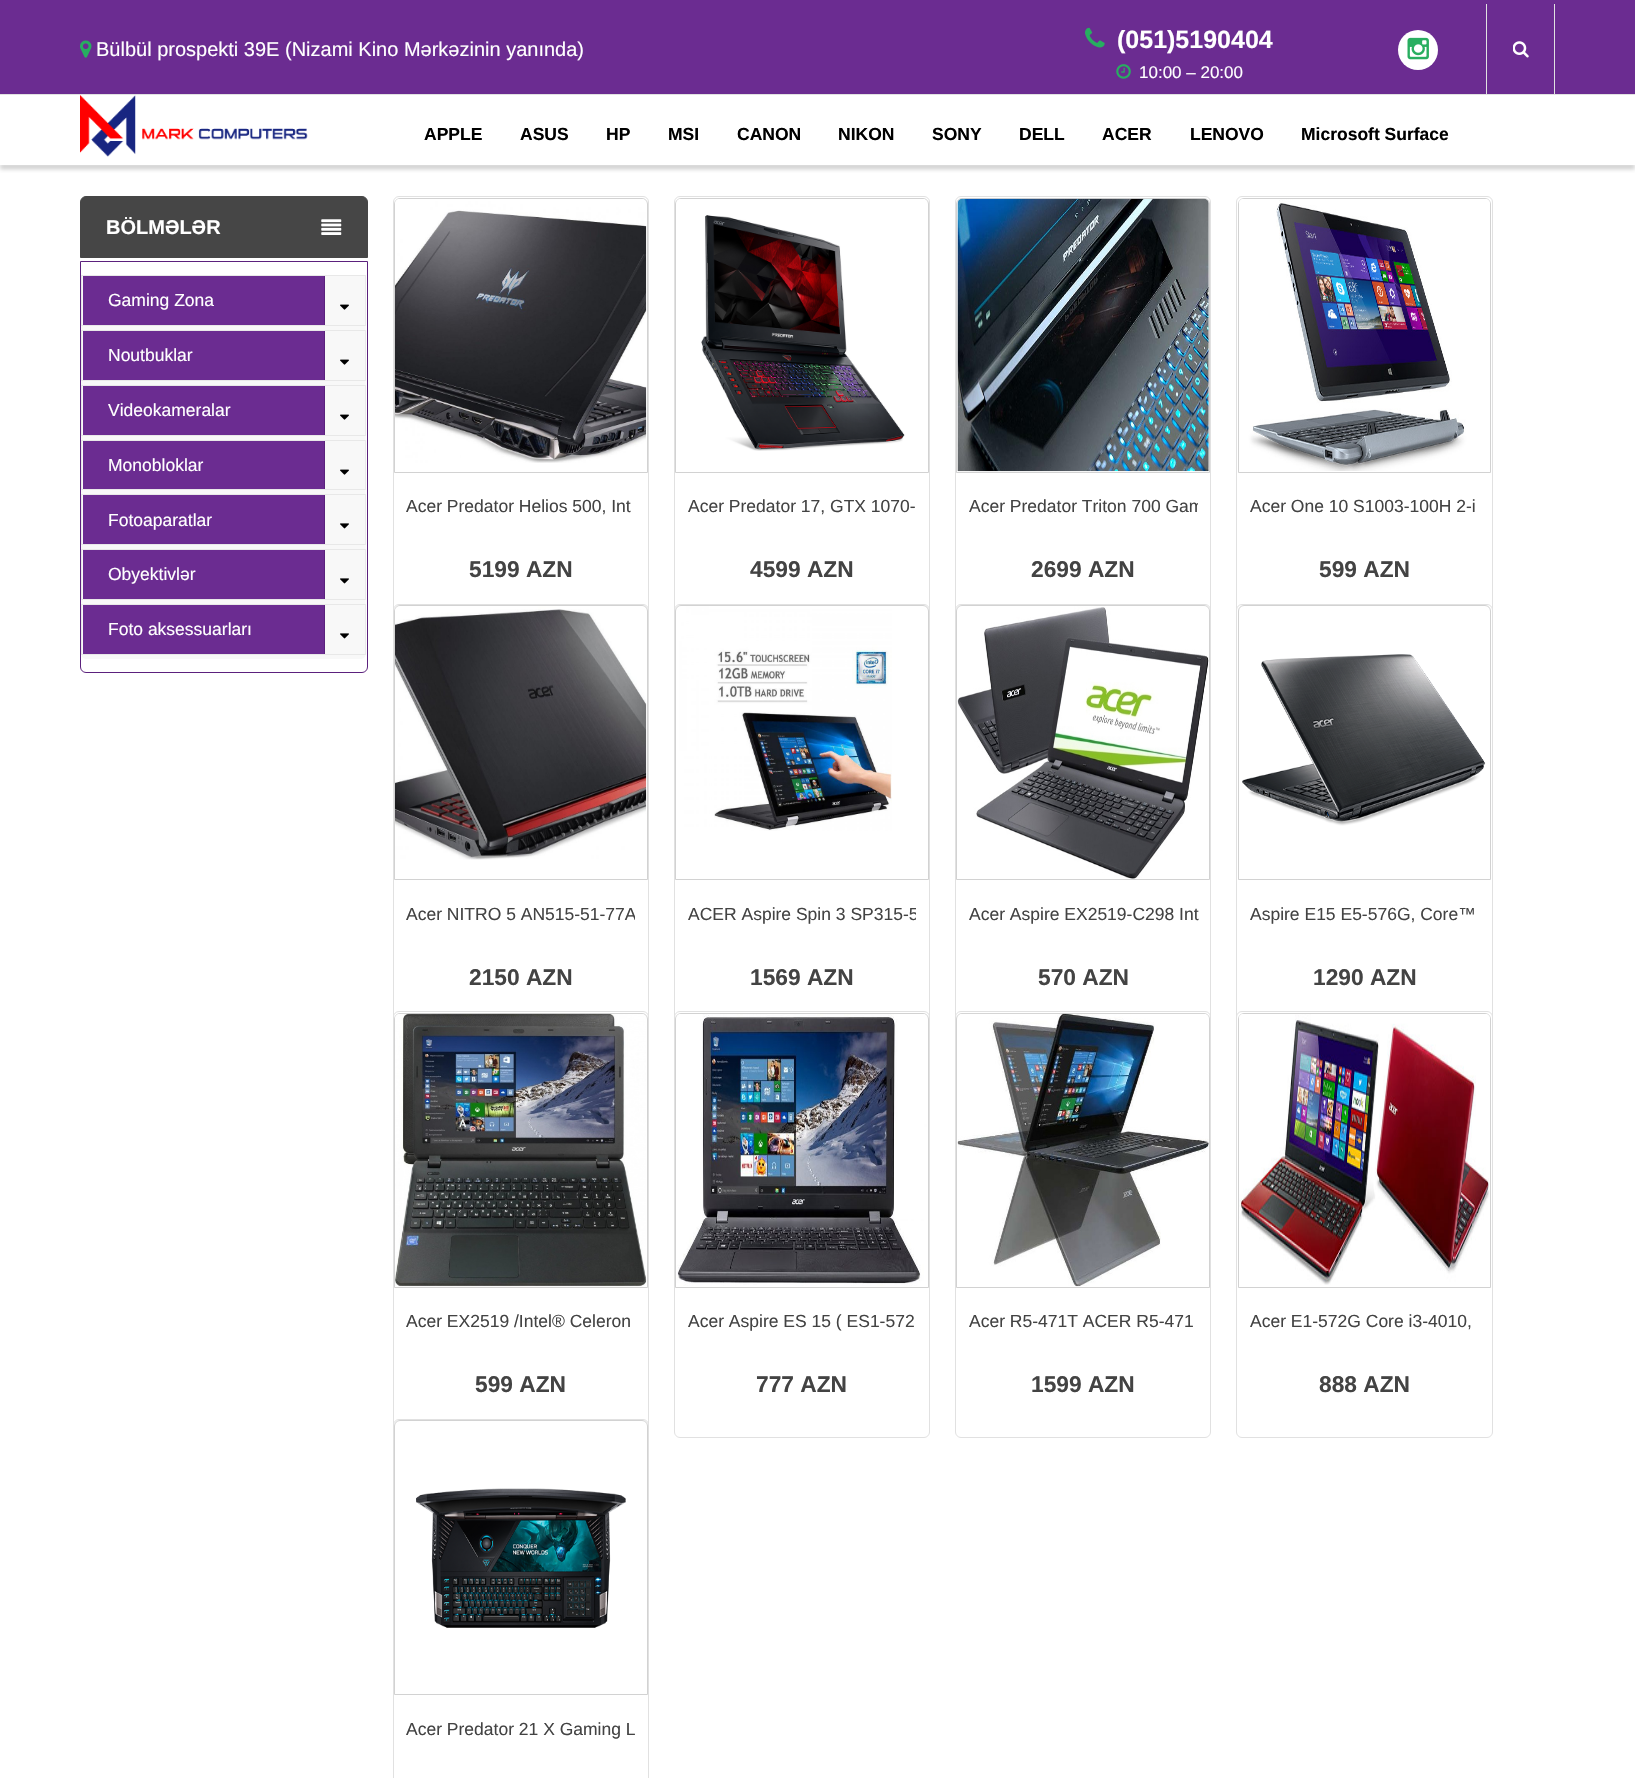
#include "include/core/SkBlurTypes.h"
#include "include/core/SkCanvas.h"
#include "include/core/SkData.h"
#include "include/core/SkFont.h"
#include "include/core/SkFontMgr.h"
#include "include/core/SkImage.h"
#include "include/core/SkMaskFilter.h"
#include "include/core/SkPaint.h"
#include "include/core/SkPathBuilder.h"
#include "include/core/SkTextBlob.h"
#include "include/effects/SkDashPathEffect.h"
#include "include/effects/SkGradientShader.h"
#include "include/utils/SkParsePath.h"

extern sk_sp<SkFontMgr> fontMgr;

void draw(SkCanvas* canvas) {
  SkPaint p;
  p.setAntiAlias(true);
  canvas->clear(SK_ColorWHITE);
  p.setColor(SkColorSetRGB(107, 44, 145));
  canvas->drawRect(SkRect::MakeLTRB(0, 0, 1635, 94), p);
  p.setColor(SkColorSetRGB(225, 225, 225));
  canvas->drawRect(SkRect::MakeLTRB(0, 94, 1635, 95), p);
  canvas->drawImageRect(SkImages::DeferredFromEncodedData(SkData::MakeFromFileName("images/1.png")), SkRect::MakeLTRB(80, 40, 92, 58), SkSamplingOptions());
  canvas->drawImageRect(SkImages::DeferredFromEncodedData(SkData::MakeFromFileName("images/2.png")), SkRect::MakeLTRB(1085, 27, 1105, 48), SkSamplingOptions());
  canvas->drawImageRect(SkImages::DeferredFromEncodedData(SkData::MakeFromFileName("images/3.png")), SkRect::MakeLTRB(1116, 64, 1131, 79), SkSamplingOptions());
  p.setColor(SK_ColorWHITE);
  canvas->drawCircle(1418, 50, 20, p);
  canvas->drawImageRect(SkImages::DeferredFromEncodedData(SkData::MakeFromFileName("images/4.png")), SkRect::MakeLTRB(1407, 37, 1429, 60), SkSamplingOptions());
  p.setColor(SkColorSetRGB(225, 225, 225));
  canvas->drawRect(SkRect::MakeLTRB(1554, 4, 1555, 94), p);
  canvas->drawRect(SkRect::MakeLTRB(1486, 4, 1487, 94), p);
  canvas->drawImageRect(SkImages::DeferredFromEncodedData(SkData::MakeFromFileName("images/5.png")), SkRect::MakeLTRB(1513, 41, 1529, 58), SkSamplingOptions());
  canvas->drawImageRect(SkImages::DeferredFromEncodedData(SkData::MakeFromFileName("images/6.png")), SkRect::MakeLTRB(80, 95, 308, 157), SkSamplingOptions());
  canvas->save();
  canvas->clipRect(SkRect::MakeLTRB(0, 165, 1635, 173));
  p.setColor(SkColorSetRGB(202, 202, 202));
  p.setMaskFilter(SkMaskFilter::MakeBlur(kNormal_SkBlurStyle, 2));
  canvas->drawRect(SkRect::MakeLTRB(0, 164, 1635, 169), p);
  p.setMaskFilter(nullptr);
  canvas->restore();
  p.setColor(SkColorSetRGB(70, 70, 70));
  canvas->drawPath(SkPathBuilder().moveTo(86, 196.5f).lineTo(362, 196.5f).cubicTo(365, 196.5f, 367.5f, 199, 367.5f, 202).lineTo(367.5f, 257.5f).lineTo(80.5f, 257.5f).lineTo(80.5f, 202).cubicTo(80.5f, 199, 83, 196.5f, 86, 196.5f).close().detach(), p);
  p.setStyle(SkPaint::kStroke_Style);
  p.setStrokeWidth(1);
  canvas->drawPath(SkPathBuilder().moveTo(86, 196.5f).lineTo(362, 196.5f).cubicTo(365, 196.5f, 367.5f, 199, 367.5f, 202).lineTo(367.5f, 257.5f).lineTo(80.5f, 257.5f).lineTo(80.5f, 202).cubicTo(80.5f, 199, 83, 196.5f, 86, 196.5f).close().detach(), p);
  canvas->drawImageRect(SkImages::DeferredFromEncodedData(SkData::MakeFromFileName("images/7.png")), SkRect::MakeLTRB(321, 219, 342, 235), SkSamplingOptions());
  p.setColor(SkColorSetRGB(91, 33, 125));
  canvas->drawPath(SkPathBuilder().moveTo(80.5f, 261.5f).lineTo(367.5f, 261.5f).lineTo(367.5f, 667).cubicTo(367.5f, 670, 365, 672.5f, 362, 672.5f).lineTo(86, 672.5f).cubicTo(83, 672.5f, 80.5f, 670, 80.5f, 667).close().detach(), p);
  p.setStyle(SkPaint::kFill_Style);
  p.setColor(SkColorSetRGB(248, 248, 248));
  canvas->drawPath(SkPathBuilder().moveTo(81, 275).lineTo(366, 275).lineTo(366, 653).cubicTo(366, 656.5f, 363.5f, 659, 360, 659).lineTo(87, 659).cubicTo(83.5f, 659, 81, 656.5f, 81, 653).close().detach(), p);
  p.setStyle(SkPaint::kStroke_Style);
  p.setColor(SkColorSetRGB(232, 232, 232));
  canvas->drawRect(SkRect::MakeLTRB(81.5f, 275.5f, 365.5f, 325.5f), p);
  p.setStyle(SkPaint::kFill_Style);
  p.setColor(SkColorSetRGB(107, 44, 145));
  canvas->drawRect(SkRect::MakeLTRB(83, 276, 324, 325), p);
  p.setColor(SkColorSetRGB(91, 33, 125));
  canvas->drawRect(SkRect::MakeLTRB(324, 276, 325, 325), p);
  canvas->drawImageRect(SkImages::DeferredFromEncodedData(SkData::MakeFromFileName("images/8.png")), SkRect::MakeLTRB(340, 304, 349, 310), SkSamplingOptions());
  p.setStyle(SkPaint::kStroke_Style);
  p.setColor(SkColorSetRGB(232, 232, 232));
  canvas->drawRect(SkRect::MakeLTRB(81.5f, 330.5f, 365.5f, 380.5f), p);
  p.setStyle(SkPaint::kFill_Style);
  p.setColor(SkColorSetRGB(107, 44, 145));
  canvas->drawRect(SkRect::MakeLTRB(83, 331, 324, 380), p);
  p.setColor(SkColorSetRGB(91, 33, 125));
  canvas->drawRect(SkRect::MakeLTRB(324, 331, 325, 380), p);
  canvas->drawImageRect(SkImages::DeferredFromEncodedData(SkData::MakeFromFileName("images/8.png")), SkRect::MakeLTRB(340, 359, 349, 365), SkSamplingOptions());
  p.setStyle(SkPaint::kStroke_Style);
  p.setColor(SkColorSetRGB(232, 232, 232));
  canvas->drawRect(SkRect::MakeLTRB(81.5f, 385.5f, 365.5f, 435.5f), p);
  p.setStyle(SkPaint::kFill_Style);
  p.setColor(SkColorSetRGB(107, 44, 145));
  canvas->drawRect(SkRect::MakeLTRB(83, 386, 324, 435), p);
  p.setColor(SkColorSetRGB(91, 33, 125));
  canvas->drawRect(SkRect::MakeLTRB(324, 386, 325, 435), p);
  canvas->drawImageRect(SkImages::DeferredFromEncodedData(SkData::MakeFromFileName("images/8.png")), SkRect::MakeLTRB(340, 414, 349, 420), SkSamplingOptions());
  p.setStyle(SkPaint::kStroke_Style);
  p.setColor(SkColorSetRGB(232, 232, 232));
  canvas->drawRect(SkRect::MakeLTRB(81.5f, 440.5f, 365.5f, 489.5f), p);
  p.setStyle(SkPaint::kFill_Style);
  p.setColor(SkColorSetRGB(107, 44, 145));
  canvas->drawRect(SkRect::MakeLTRB(83, 441, 324, 489), p);
  p.setColor(SkColorSetRGB(91, 33, 125));
  canvas->drawRect(SkRect::MakeLTRB(324, 441, 325, 489), p);
  canvas->drawImageRect(SkImages::DeferredFromEncodedData(SkData::MakeFromFileName("images/8.png")), SkRect::MakeLTRB(340, 469, 349, 475), SkSamplingOptions());
  p.setStyle(SkPaint::kStroke_Style);
  p.setColor(SkColorSetRGB(232, 232, 232));
  canvas->drawRect(SkRect::MakeLTRB(81.5f, 494.5f, 365.5f, 544.5f), p);
  p.setStyle(SkPaint::kFill_Style);
  p.setColor(SkColorSetRGB(107, 44, 145));
  canvas->drawRect(SkRect::MakeLTRB(83, 495, 324, 544), p);
  p.setColor(SkColorSetRGB(91, 33, 125));
  canvas->drawRect(SkRect::MakeLTRB(324, 495, 325, 544), p);
  canvas->drawImageRect(SkImages::DeferredFromEncodedData(SkData::MakeFromFileName("images/9.png")), SkRect::MakeLTRB(340, 523, 349, 529), SkSamplingOptions());
  p.setStyle(SkPaint::kStroke_Style);
  p.setColor(SkColorSetRGB(232, 232, 232));
  canvas->drawRect(SkRect::MakeLTRB(81.5f, 549.5f, 365.5f, 599.5f), p);
  p.setStyle(SkPaint::kFill_Style);
  p.setColor(SkColorSetRGB(107, 44, 145));
  canvas->drawRect(SkRect::MakeLTRB(83, 550, 324, 599), p);
  p.setColor(SkColorSetRGB(91, 33, 125));
  canvas->drawRect(SkRect::MakeLTRB(324, 550, 325, 599), p);
  canvas->drawImageRect(SkImages::DeferredFromEncodedData(SkData::MakeFromFileName("images/9.png")), SkRect::MakeLTRB(340, 578, 349, 584), SkSamplingOptions());
  p.setStyle(SkPaint::kStroke_Style);
  p.setColor(SkColorSetRGB(232, 232, 232));
  canvas->drawRect(SkRect::MakeLTRB(81.5f, 604.5f, 365.5f, 654.5f), p);
  p.setStyle(SkPaint::kFill_Style);
  p.setColor(SkColorSetRGB(107, 44, 145));
  canvas->drawRect(SkRect::MakeLTRB(83, 605, 324, 654), p);
  p.setColor(SkColorSetRGB(91, 33, 125));
  canvas->drawRect(SkRect::MakeLTRB(324, 605, 325, 654), p);
  canvas->drawImageRect(SkImages::DeferredFromEncodedData(SkData::MakeFromFileName("images/9.png")), SkRect::MakeLTRB(340, 633, 349, 639), SkSamplingOptions());
  p.setStyle(SkPaint::kStroke_Style);
  p.setColor(SkColorSetRGB(225, 225, 225));
  canvas->drawRoundRect(SkRect::MakeLTRB(393.5f, 196.5f, 648.5f, 622.5f), 5.5f, 5.5f, p);
  p.setColor(SkColorSetRGB(210, 210, 210));
  canvas->drawPath(SkPathBuilder().moveTo(400, 198.5f).lineTo(642, 198.5f).cubicTo(645, 198.5f, 647.5f, 201, 647.5f, 204).lineTo(647.5f, 472.5f).lineTo(394.5f, 472.5f).lineTo(394.5f, 204).cubicTo(394.5f, 201, 397, 198.5f, 400, 198.5f).close().detach(), p);
  canvas->drawImageRect(SkImages::DeferredFromEncodedData(SkData::MakeFromFileName("images/10.png")), SkRect::MakeLTRB(395, 199, 647, 463), SkSamplingOptions());
  p.setColor(SkColorSetRGB(225, 225, 225));
  canvas->drawRoundRect(SkRect::MakeLTRB(674.5f, 196.5f, 929.5f, 622.5f), 5.5f, 5.5f, p);
  p.setColor(SkColorSetRGB(210, 210, 210));
  canvas->drawPath(SkPathBuilder().moveTo(681, 198.5f).lineTo(923, 198.5f).cubicTo(926, 198.5f, 928.5f, 201, 928.5f, 204).lineTo(928.5f, 472.5f).lineTo(675.5f, 472.5f).lineTo(675.5f, 204).cubicTo(675.5f, 201, 678, 198.5f, 681, 198.5f).close().detach(), p);
  canvas->drawImageRect(SkImages::DeferredFromEncodedData(SkData::MakeFromFileName("images/11.png")), SkRect::MakeLTRB(676, 199, 927, 451), SkSamplingOptions());
  p.setColor(SkColorSetRGB(225, 225, 225));
  canvas->drawRoundRect(SkRect::MakeLTRB(955.5f, 196.5f, 1210.5f, 622.5f), 5.5f, 5.5f, p);
  p.setColor(SkColorSetRGB(210, 210, 210));
  canvas->drawPath(SkPathBuilder().moveTo(962, 198.5f).lineTo(1204, 198.5f).cubicTo(1207, 198.5f, 1209.5f, 201, 1209.5f, 204).lineTo(1209.5f, 472.5f).lineTo(956.5f, 472.5f).lineTo(956.5f, 204).cubicTo(956.5f, 201, 959, 198.5f, 962, 198.5f).close().detach(), p);
  canvas->drawImageRect(SkImages::DeferredFromEncodedData(SkData::MakeFromFileName("images/12.png")), SkRect::MakeLTRB(957, 198, 1209, 472), SkSamplingOptions());
  p.setColor(SkColorSetRGB(225, 225, 225));
  canvas->drawRoundRect(SkRect::MakeLTRB(1236.5f, 196.5f, 1492.5f, 622.5f), 5.5f, 5.5f, p);
  p.setColor(SkColorSetRGB(210, 210, 210));
  canvas->drawPath(SkPathBuilder().moveTo(1244, 198.5f).lineTo(1485, 198.5f).cubicTo(1488, 198.5f, 1490.5f, 201, 1490.5f, 204).lineTo(1490.5f, 472.5f).lineTo(1238.5f, 472.5f).lineTo(1238.5f, 204).cubicTo(1238.5f, 201, 1241, 198.5f, 1244, 198.5f).close().detach(), p);
  canvas->drawImageRect(SkImages::DeferredFromEncodedData(SkData::MakeFromFileName("images/13.png")), SkRect::MakeLTRB(1239, 199, 1490, 471), SkSamplingOptions());
  p.setStyle(SkPaint::kFill_Style);
  p.setColor(SK_ColorWHITE);
  canvas->drawRoundRect(SkRect::MakeLTRB(393.5f, 604.5f, 648.5f, 1029.5f), 5.5f, 5.5f, p);
  p.setStyle(SkPaint::kStroke_Style);
  p.setColor(SkColorSetRGB(225, 225, 225));
  canvas->drawRoundRect(SkRect::MakeLTRB(393.5f, 604.5f, 648.5f, 1029.5f), 5.5f, 5.5f, p);
  p.setColor(SkColorSetRGB(210, 210, 210));
  canvas->drawPath(SkPathBuilder().moveTo(400, 605.5f).lineTo(642, 605.5f).cubicTo(645, 605.5f, 647.5f, 608, 647.5f, 611).lineTo(647.5f, 879.5f).lineTo(394.5f, 879.5f).lineTo(394.5f, 611).cubicTo(394.5f, 608, 397, 605.5f, 400, 605.5f).close().detach(), p);
  canvas->drawImageRect(SkImages::DeferredFromEncodedData(SkData::MakeFromFileName("images/14.png")), SkRect::MakeLTRB(395, 606, 647, 860), SkSamplingOptions());
  p.setStyle(SkPaint::kFill_Style);
  p.setColor(SK_ColorWHITE);
  canvas->drawRoundRect(SkRect::MakeLTRB(674.5f, 604.5f, 929.5f, 1029.5f), 5.5f, 5.5f, p);
  p.setStyle(SkPaint::kStroke_Style);
  p.setColor(SkColorSetRGB(225, 225, 225));
  canvas->drawRoundRect(SkRect::MakeLTRB(674.5f, 604.5f, 929.5f, 1029.5f), 5.5f, 5.5f, p);
  p.setColor(SkColorSetRGB(210, 210, 210));
  canvas->drawPath(SkPathBuilder().moveTo(681, 605.5f).lineTo(923, 605.5f).cubicTo(926, 605.5f, 928.5f, 608, 928.5f, 611).lineTo(928.5f, 879.5f).lineTo(675.5f, 879.5f).lineTo(675.5f, 611).cubicTo(675.5f, 608, 678, 605.5f, 681, 605.5f).close().detach(), p);
  canvas->drawImageRect(SkImages::DeferredFromEncodedData(SkData::MakeFromFileName("images/15.png")), SkRect::MakeLTRB(679, 606, 892, 831), SkSamplingOptions());
  p.setStyle(SkPaint::kFill_Style);
  p.setColor(SK_ColorWHITE);
  canvas->drawRoundRect(SkRect::MakeLTRB(955.5f, 604.5f, 1210.5f, 1029.5f), 5.5f, 5.5f, p);
  p.setStyle(SkPaint::kStroke_Style);
  p.setColor(SkColorSetRGB(225, 225, 225));
  canvas->drawRoundRect(SkRect::MakeLTRB(955.5f, 604.5f, 1210.5f, 1029.5f), 5.5f, 5.5f, p);
  p.setColor(SkColorSetRGB(210, 210, 210));
  canvas->drawPath(SkPathBuilder().moveTo(962, 605.5f).lineTo(1204, 605.5f).cubicTo(1207, 605.5f, 1209.5f, 608, 1209.5f, 611).lineTo(1209.5f, 879.5f).lineTo(956.5f, 879.5f).lineTo(956.5f, 611).cubicTo(956.5f, 608, 959, 605.5f, 962, 605.5f).close().detach(), p);
  canvas->drawImageRect(SkImages::DeferredFromEncodedData(SkData::MakeFromFileName("images/16.png")), SkRect::MakeLTRB(957, 606, 1209, 879), SkSamplingOptions());
  p.setStyle(SkPaint::kFill_Style);
  p.setColor(SK_ColorWHITE);
  canvas->drawRoundRect(SkRect::MakeLTRB(1236.5f, 604.5f, 1492.5f, 1029.5f), 5.5f, 5.5f, p);
  p.setStyle(SkPaint::kStroke_Style);
  p.setColor(SkColorSetRGB(225, 225, 225));
  canvas->drawRoundRect(SkRect::MakeLTRB(1236.5f, 604.5f, 1492.5f, 1029.5f), 5.5f, 5.5f, p);
  p.setColor(SkColorSetRGB(210, 210, 210));
  canvas->drawPath(SkPathBuilder().moveTo(1244, 605.5f).lineTo(1485, 605.5f).cubicTo(1488, 605.5f, 1490.5f, 608, 1490.5f, 611).lineTo(1490.5f, 879.5f).lineTo(1238.5f, 879.5f).lineTo(1238.5f, 611).cubicTo(1238.5f, 608, 1241, 605.5f, 1244, 605.5f).close().detach(), p);
  canvas->drawImageRect(SkImages::DeferredFromEncodedData(SkData::MakeFromFileName("images/17.png")), SkRect::MakeLTRB(1242, 654, 1486, 826), SkSamplingOptions());
  p.setStyle(SkPaint::kFill_Style);
  p.setColor(SK_ColorWHITE);
  canvas->drawRoundRect(SkRect::MakeLTRB(393.5f, 1011.5f, 648.5f, 1437.5f), 5.5f, 5.5f, p);
  p.setStyle(SkPaint::kStroke_Style);
  p.setColor(SkColorSetRGB(225, 225, 225));
  canvas->drawRoundRect(SkRect::MakeLTRB(393.5f, 1011.5f, 648.5f, 1437.5f), 5.5f, 5.5f, p);
  p.setColor(SkColorSetRGB(210, 210, 210));
  canvas->drawPath(SkPathBuilder().moveTo(400, 1013.5f).lineTo(642, 1013.5f).cubicTo(645, 1013.5f, 647.5f, 1016, 647.5f, 1019).lineTo(647.5f, 1287.5f).lineTo(394.5f, 1287.5f).lineTo(394.5f, 1019).cubicTo(394.5f, 1016, 397, 1013.5f, 400, 1013.5f).close().detach(), p);
  canvas->drawImageRect(SkImages::DeferredFromEncodedData(SkData::MakeFromFileName("images/18.png")), SkRect::MakeLTRB(395, 1013, 647, 1287), SkSamplingOptions());
  p.setStyle(SkPaint::kFill_Style);
  p.setColor(SK_ColorWHITE);
  canvas->drawRoundRect(SkRect::MakeLTRB(674.5f, 1011.5f, 929.5f, 1437.5f), 5.5f, 5.5f, p);
  p.setStyle(SkPaint::kStroke_Style);
  p.setColor(SkColorSetRGB(225, 225, 225));
  canvas->drawRoundRect(SkRect::MakeLTRB(674.5f, 1011.5f, 929.5f, 1437.5f), 5.5f, 5.5f, p);
  p.setColor(SkColorSetRGB(210, 210, 210));
  canvas->drawPath(SkPathBuilder().moveTo(681, 1013.5f).lineTo(923, 1013.5f).cubicTo(926, 1013.5f, 928.5f, 1016, 928.5f, 1019).lineTo(928.5f, 1287.5f).lineTo(675.5f, 1287.5f).lineTo(675.5f, 1019).cubicTo(675.5f, 1016, 678, 1013.5f, 681, 1013.5f).close().detach(), p);
  canvas->drawImageRect(SkImages::DeferredFromEncodedData(SkData::MakeFromFileName("images/19.png")), SkRect::MakeLTRB(676, 1014, 927, 1286), SkSamplingOptions());
  p.setStyle(SkPaint::kFill_Style);
  p.setColor(SK_ColorWHITE);
  canvas->drawRoundRect(SkRect::MakeLTRB(955.5f, 1011.5f, 1210.5f, 1437.5f), 5.5f, 5.5f, p);
  p.setStyle(SkPaint::kStroke_Style);
  p.setColor(SkColorSetRGB(225, 225, 225));
  canvas->drawRoundRect(SkRect::MakeLTRB(955.5f, 1011.5f, 1210.5f, 1437.5f), 5.5f, 5.5f, p);
  p.setColor(SkColorSetRGB(210, 210, 210));
  canvas->drawPath(SkPathBuilder().moveTo(962, 1013.5f).lineTo(1204, 1013.5f).cubicTo(1207, 1013.5f, 1209.5f, 1016, 1209.5f, 1019).lineTo(1209.5f, 1287.5f).lineTo(956.5f, 1287.5f).lineTo(956.5f, 1019).cubicTo(956.5f, 1016, 959, 1013.5f, 962, 1013.5f).close().detach(), p);
  canvas->drawImageRect(SkImages::DeferredFromEncodedData(SkData::MakeFromFileName("images/20.png")), SkRect::MakeLTRB(957, 1013, 1209, 1287), SkSamplingOptions());
  p.setStyle(SkPaint::kFill_Style);
  p.setColor(SK_ColorWHITE);
  canvas->drawRoundRect(SkRect::MakeLTRB(1236.5f, 1011.5f, 1492.5f, 1437.5f), 5.5f, 5.5f, p);
  p.setStyle(SkPaint::kStroke_Style);
  p.setColor(SkColorSetRGB(225, 225, 225));
  canvas->drawRoundRect(SkRect::MakeLTRB(1236.5f, 1011.5f, 1492.5f, 1437.5f), 5.5f, 5.5f, p);
  p.setColor(SkColorSetRGB(210, 210, 210));
  canvas->drawPath(SkPathBuilder().moveTo(1244, 1013.5f).lineTo(1485, 1013.5f).cubicTo(1488, 1013.5f, 1490.5f, 1016, 1490.5f, 1019).lineTo(1490.5f, 1287.5f).lineTo(1238.5f, 1287.5f).lineTo(1238.5f, 1019).cubicTo(1238.5f, 1016, 1241, 1013.5f, 1244, 1013.5f).close().detach(), p);
  canvas->drawImageRect(SkImages::DeferredFromEncodedData(SkData::MakeFromFileName("images/21.png")), SkRect::MakeLTRB(1239, 1014, 1490, 1285), SkSamplingOptions());
  p.setStyle(SkPaint::kFill_Style);
  p.setColor(SK_ColorWHITE);
  canvas->drawRoundRect(SkRect::MakeLTRB(393.5f, 1419.5f, 648.5f, 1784.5f), 5.5f, 5.5f, p);
  p.setStyle(SkPaint::kStroke_Style);
  p.setColor(SkColorSetRGB(225, 225, 225));
  canvas->drawRoundRect(SkRect::MakeLTRB(393.5f, 1419.5f, 648.5f, 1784.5f), 5.5f, 5.5f, p);
  p.setColor(SkColorSetRGB(210, 210, 210));
  canvas->drawPath(SkPathBuilder().moveTo(400, 1420.5f).lineTo(642, 1420.5f).cubicTo(645, 1420.5f, 647.5f, 1423, 647.5f, 1426).lineTo(647.5f, 1694.5f).lineTo(394.5f, 1694.5f).lineTo(394.5f, 1426).cubicTo(394.5f, 1423, 397, 1420.5f, 400, 1420.5f).close().detach(), p);
  canvas->drawImageRect(SkImages::DeferredFromEncodedData(SkData::MakeFromFileName("images/22.png")), SkRect::MakeLTRB(416, 1488, 626, 1628), SkSamplingOptions());
  SkFont font1(fontMgr->matchFamilyStyle("Liberation Sans", SkFontStyle::Normal()), 20);
  font1.setSubpixel(true);
  p.setStyle(SkPaint::kFill_Style);
  p.setColor(SK_ColorWHITE);
  canvas->drawString("Bülbül prospekti 39E (Nizami Kino Mərkəzinin yanında)", 96, 56, font1, p);
  SkFont font2(fontMgr->matchFamilyStyle("Liberation Sans", SkFontStyle::Bold()), 25);
  font2.setSubpixel(true);
  canvas->drawString("(051)5190404", 1117, 48, font2, p);
  SkFont font3(fontMgr->matchFamilyStyle("Liberation Sans", SkFontStyle::Normal()), 17);
  font3.setSubpixel(true);
  canvas->drawString("10:00 – 20:00", 1139, 78, font3, p);
  SkFont font4(fontMgr->matchFamilyStyle("Liberation Sans", SkFontStyle::Bold()), 17.5f);
  font4.setSubpixel(true);
  p.setColor(SK_ColorBLACK);
  canvas->drawString("APPLE", 424, 140, font4, p);
  canvas->drawString("ASUS", 520, 140, font4, p);
  canvas->drawString("HP", 606, 140, font4, p);
  canvas->drawString("MSI", 668, 140, font4, p);
  canvas->drawString("CANON", 737, 140, font4, p);
  canvas->drawString("NIKON", 838, 140, font4, p);
  canvas->drawString("SONY", 932, 140, font4, p);
  canvas->drawString("DELL", 1019, 140, font4, p);
  canvas->drawString("ACER", 1102, 140, font4, p);
  canvas->drawString("LENOVO", 1190, 140, font4, p);
  canvas->drawString("Microsoft Surface", 1301, 140, font4, p);
  SkFont font5(fontMgr->matchFamilyStyle("Liberation Sans", SkFontStyle::Bold()), 20);
  font5.setSubpixel(true);
  p.setColor(SK_ColorWHITE);
  canvas->drawString("BÖLMƏLƏR", 106, 234, font5, p);
  SkFont font6(fontMgr->matchFamilyStyle("Liberation Sans", SkFontStyle::Normal()), 17.5f);
  font6.setSubpixel(true);
  canvas->drawString("Gaming Zona", 108, 306, font6, p);
  canvas->drawString("Noutbuklar", 108, 361, font6, p);
  canvas->drawString("Videokameralar", 108, 416, font6, p);
  canvas->drawString("Monobloklar", 108, 471, font6, p);
  canvas->drawString("Fotoaparatlar", 108, 526, font6, p);
  canvas->drawString("Obyektivlər", 108, 580, font6, p);
  canvas->drawString("Foto aksessuarları", 108, 635, font6, p);
  p.setColor(SkColorSetRGB(67, 67, 67));
  canvas->drawString("Acer Predator Helios 500, Int", 406, 512, font6, p);
  SkFont font7(fontMgr->matchFamilyStyle("Liberation Sans", SkFontStyle::Bold()), 22.75f);
  font7.setSubpixel(true);
  canvas->drawString("5199 AZN", 469, 577, font7, p);
  canvas->drawString("Acer Predator 17, GTX 1070-", 688, 512, font6, p);
  canvas->drawString("4599 AZN", 750, 577, font7, p);
  canvas->save();
  canvas->clipRect(SkRect::MakeLTRB(969, 495, 1198, 540));
  canvas->drawString("Acer Predator Triton 700 Gam", 969, 512, font6, p);
  canvas->restore();
  canvas->drawString("2699 AZN", 1031, 577, font7, p);
  canvas->drawString("Acer One 10 S1003-100H 2-i", 1250, 512, font6, p);
  canvas->drawString("599 AZN", 1319, 577, font7, p);
  canvas->save();
  canvas->clipRect(SkRect::MakeLTRB(406, 903, 635, 948));
  canvas->drawString("Acer NITRO 5 AN515-51-77A", 406, 920, font6, p);
  canvas->restore();
  canvas->drawString("2150 AZN", 469, 985, font7, p);
  canvas->save();
  canvas->clipRect(SkRect::MakeLTRB(688, 903, 916, 948));
  canvas->drawString("ACER Aspire Spin 3 SP315-5", 688, 920, font6, p);
  canvas->restore();
  canvas->drawString("1569 AZN", 750, 985, font7, p);
  canvas->drawString("Acer Aspire EX2519-C298 Int", 969, 920, font6, p);
  canvas->drawString("570 AZN", 1038, 985, font7, p);
  canvas->drawString("Aspire E15 E5-576G, Core™", 1250, 920, font6, p);
  canvas->drawString("1290 AZN", 1313, 985, font7, p);
  canvas->drawString("Acer EX2519 /Intel® Celeron", 406, 1327, font6, p);
  canvas->drawString("599 AZN", 475, 1392, font7, p);
  canvas->drawString("Acer Aspire ES 15 ( ES1-572", 688, 1327, font6, p);
  canvas->drawString("777 AZN", 756, 1392, font7, p);
  canvas->drawString("Acer R5-471T ACER R5-471", 969, 1327, font6, p);
  canvas->drawString("1599 AZN", 1031, 1392, font7, p);
  canvas->drawString("Acer E1-572G Core i3-4010,", 1250, 1327, font6, p);
  canvas->drawString("888 AZN", 1319, 1392, font7, p);
  canvas->drawString("Acer Predator 21 X Gaming L", 406, 1735, font6, p);
}
